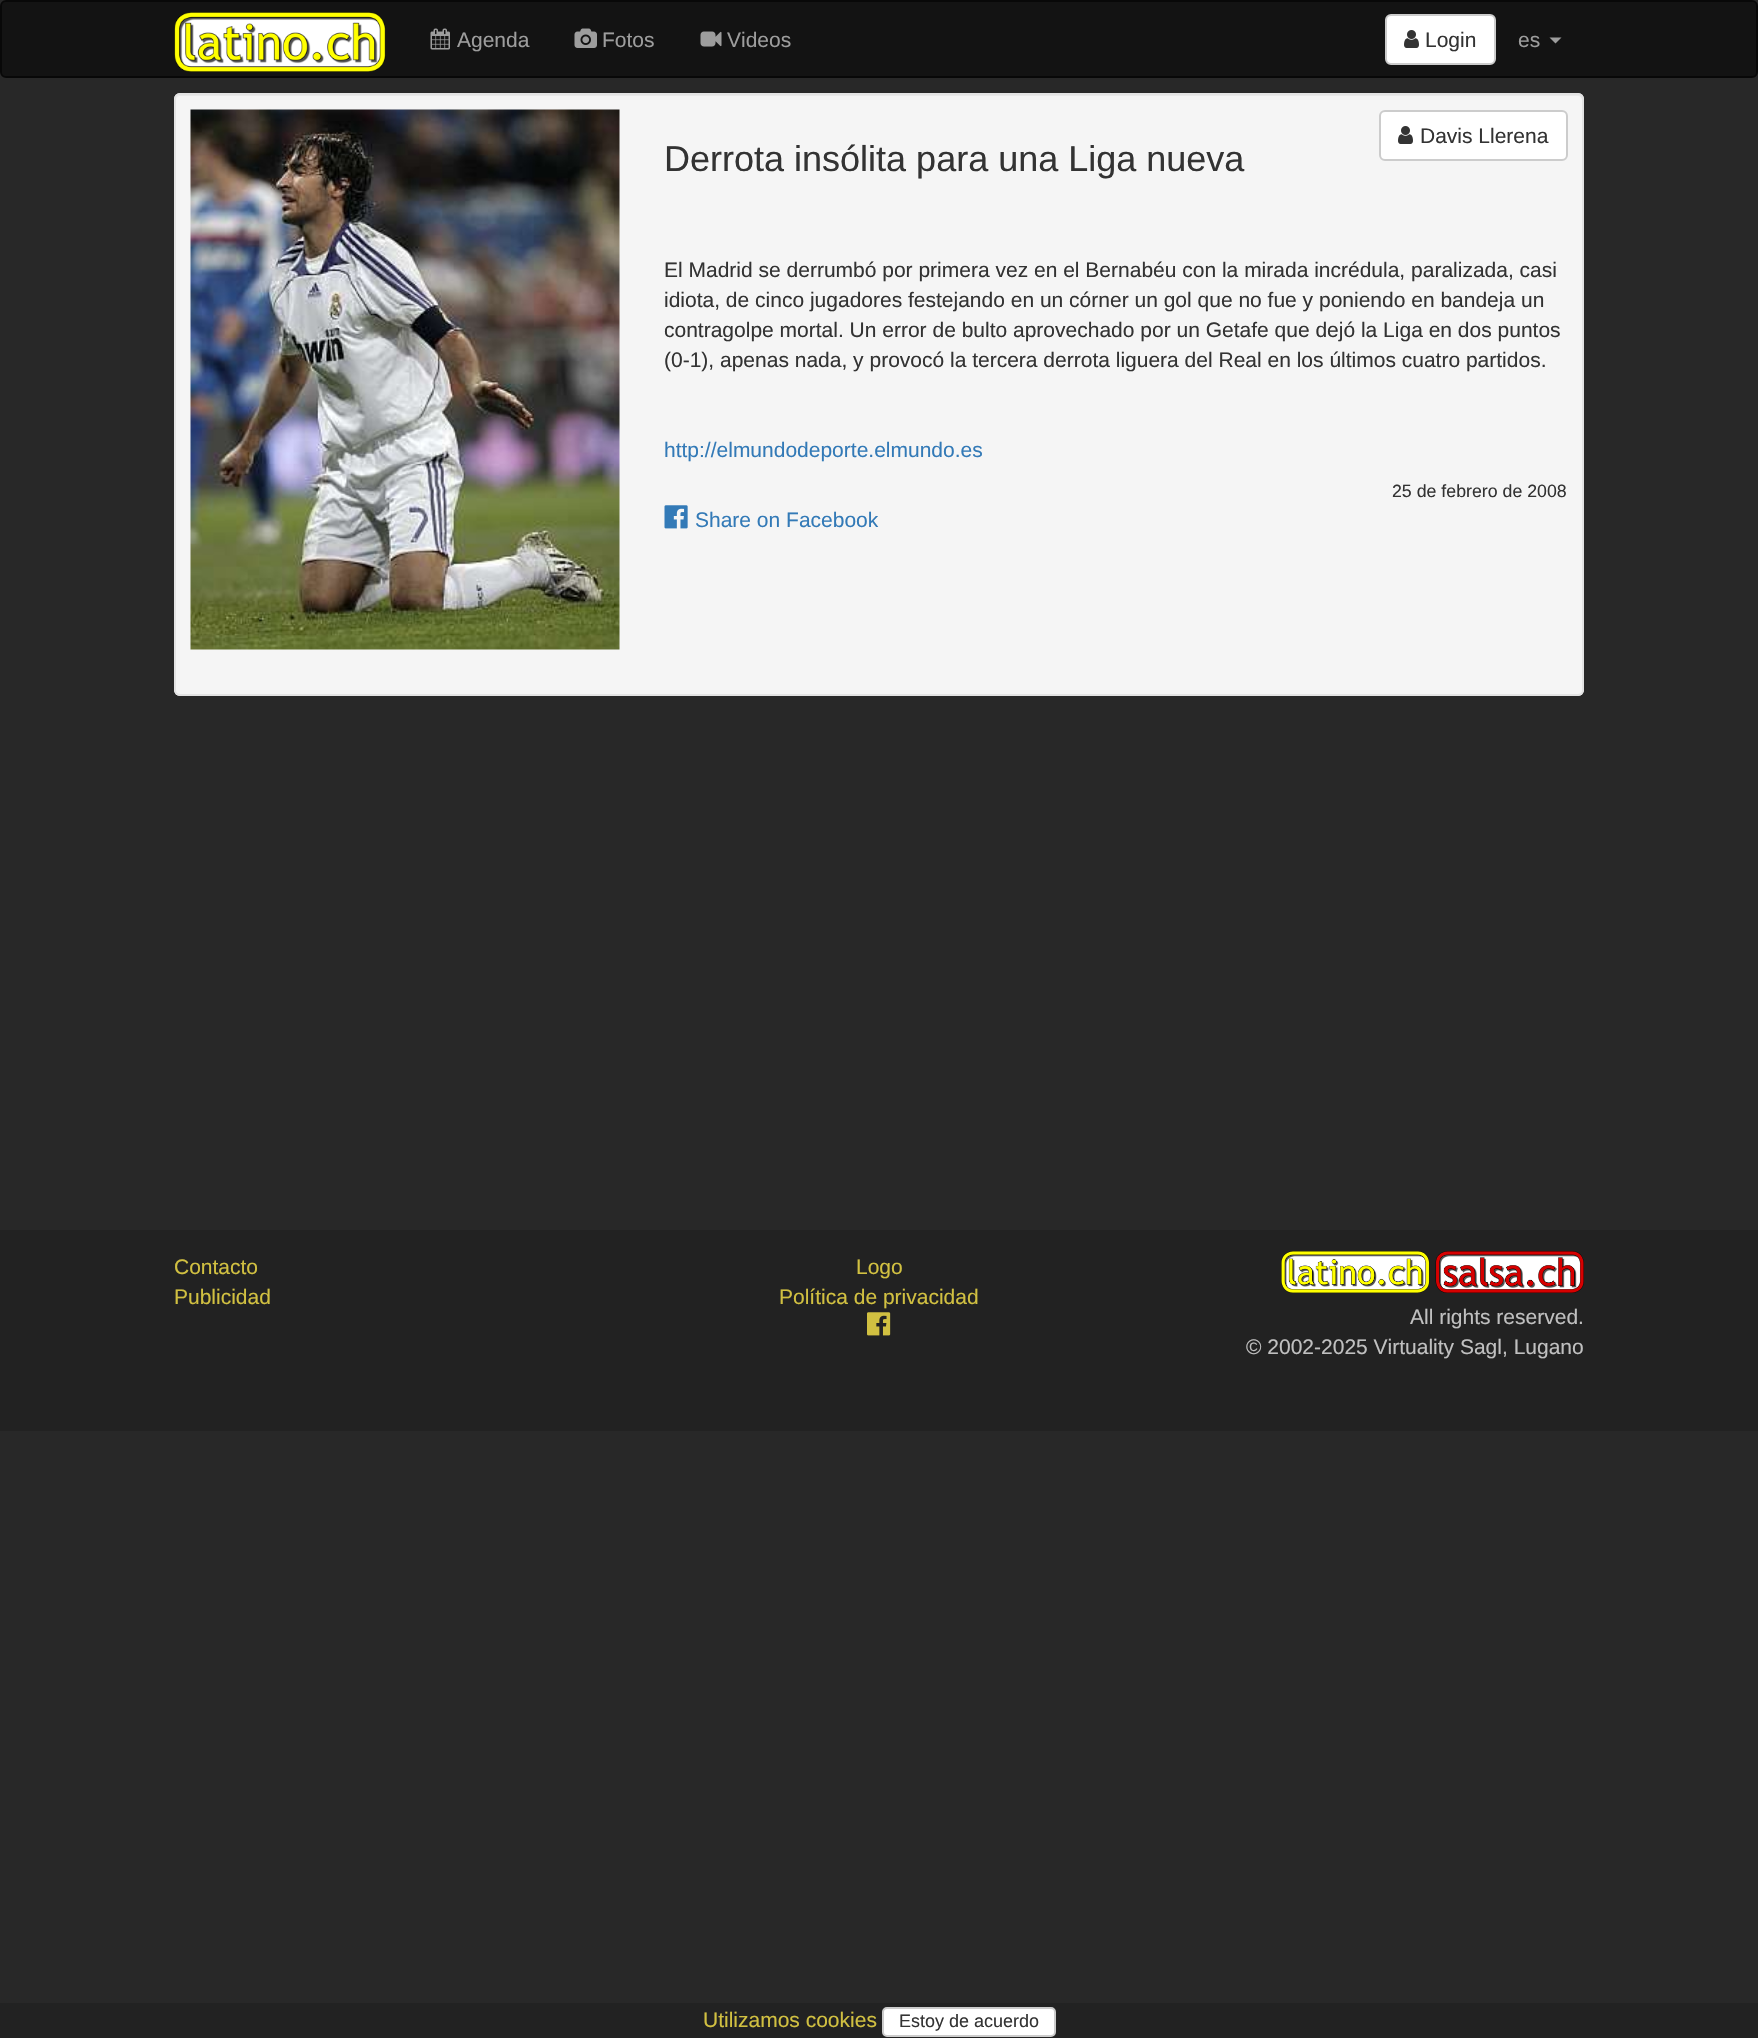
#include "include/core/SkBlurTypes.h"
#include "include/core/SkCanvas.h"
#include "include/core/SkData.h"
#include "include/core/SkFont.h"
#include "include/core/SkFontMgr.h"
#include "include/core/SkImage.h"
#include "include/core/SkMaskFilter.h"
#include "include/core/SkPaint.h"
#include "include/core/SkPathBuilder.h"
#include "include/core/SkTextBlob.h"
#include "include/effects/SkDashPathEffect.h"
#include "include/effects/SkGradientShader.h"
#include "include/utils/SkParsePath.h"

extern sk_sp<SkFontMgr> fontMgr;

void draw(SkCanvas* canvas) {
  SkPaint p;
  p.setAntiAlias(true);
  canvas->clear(SkColorSetRGB(40, 40, 40));
  p.setColor(SkColorSetRGB(19, 19, 19));
  canvas->drawRoundRect(SkRect::MakeLTRB(1, 1, 1757, 77), 5, 5, p);
  p.setStyle(SkPaint::kStroke_Style);
  p.setStrokeWidth(2);
  p.setColor(SkColorSetRGB(8, 8, 8));
  canvas->drawRoundRect(SkRect::MakeLTRB(1, 1, 1757, 77), 5, 5, p);
  canvas->drawImageRect(SkImages::DeferredFromEncodedData(SkData::MakeFromFileName("images/1.png")), SkRect::MakeLTRB(174, 12, 386, 72), SkSamplingOptions());
  canvas->drawImageRect(SkImages::DeferredFromEncodedData(SkData::MakeFromFileName("images/2.png")), SkRect::MakeLTRB(430, 28, 450, 50), SkSamplingOptions());
  canvas->drawImageRect(SkImages::DeferredFromEncodedData(SkData::MakeFromFileName("images/3.png")), SkRect::MakeLTRB(574, 28, 597, 48), SkSamplingOptions());
  canvas->drawImageRect(SkImages::DeferredFromEncodedData(SkData::MakeFromFileName("images/4.png")), SkRect::MakeLTRB(700, 31, 722, 47), SkSamplingOptions());
  p.setStyle(SkPaint::kFill_Style);
  p.setColor(SK_ColorWHITE);
  canvas->drawRoundRect(SkRect::MakeLTRB(1386, 15, 1495, 64), 5, 5, p);
  p.setStyle(SkPaint::kStroke_Style);
  p.setColor(SkColorSetRGB(204, 204, 204));
  canvas->drawRoundRect(SkRect::MakeLTRB(1386, 15, 1495, 64), 5, 5, p);
  canvas->drawImageRect(SkImages::DeferredFromEncodedData(SkData::MakeFromFileName("images/5.png")), SkRect::MakeLTRB(1404, 30, 1419, 48), SkSamplingOptions());
  p.setStyle(SkPaint::kFill_Style);
  p.setColor(SkColorSetRGB(157, 157, 157));
  canvas->drawPath(SkPathBuilder().moveTo(1549.5f, 37.5f).lineTo(1561.5f, 37.5f).lineTo(1555.5f, 43.5f).close().detach(), p);
  p.setColor(SkColorSetRGB(245, 245, 245));
  canvas->drawRoundRect(SkRect::MakeLTRB(174, 93, 1584, 696), 6, 6, p);
  p.setColor(SkColorSetRGB(233, 233, 233));
  canvas->drawPath(SkPathBuilder().moveTo(180, 96).lineTo(1578, 96).cubicTo(1580, 96, 1582, 98, 1582, 100).lineTo(1582, 693).cubicTo(1583, 692, 1583, 691, 1583, 690).lineTo(1583, 100).cubicTo(1583, 97, 1581, 95, 1578, 95).lineTo(181, 95).cubicTo(178, 95, 176, 97, 176, 100).cubicTo(176, 98, 178, 96, 180, 96).close().detach(), p);
  p.setStyle(SkPaint::kStroke_Style);
  p.setColor(SkColorSetRGB(227, 227, 227));
  canvas->drawRoundRect(SkRect::MakeLTRB(175, 94, 1583, 695), 5, 5, p);
  canvas->drawImageRect(SkImages::DeferredFromEncodedData(SkData::MakeFromFileName("images/6.png")), SkRect::MakeLTRB(190, 109, 620, 650), SkSamplingOptions());
  p.setStyle(SkPaint::kFill_Style);
  p.setColor(SK_ColorWHITE);
  canvas->drawRoundRect(SkRect::MakeLTRB(1380, 111, 1567, 160), 5, 5, p);
  p.setStyle(SkPaint::kStroke_Style);
  p.setColor(SkColorSetRGB(204, 204, 204));
  canvas->drawRoundRect(SkRect::MakeLTRB(1380, 111, 1567, 160), 5, 5, p);
  canvas->drawImageRect(SkImages::DeferredFromEncodedData(SkData::MakeFromFileName("images/5.png")), SkRect::MakeLTRB(1398, 126, 1413, 144), SkSamplingOptions());
  canvas->drawImageRect(SkImages::DeferredFromEncodedData(SkData::MakeFromFileName("images/7.png")), SkRect::MakeLTRB(664, 505, 688, 529), SkSamplingOptions());
  p.setStyle(SkPaint::kFill_Style);
  p.setColor(SkColorSetRGB(34, 34, 34));
  canvas->drawRect(SkRect::MakeLTRB(0, 1230, 1758, 1431), p);
  canvas->drawImageRect(SkImages::DeferredFromEncodedData(SkData::MakeFromFileName("images/8.png")), SkRect::MakeLTRB(867, 1312, 891, 1336), SkSamplingOptions());
  canvas->drawImageRect(SkImages::DeferredFromEncodedData(SkData::MakeFromFileName("images/9.png")), SkRect::MakeLTRB(1281, 1251, 1430, 1293), SkSamplingOptions());
  canvas->drawImageRect(SkImages::DeferredFromEncodedData(SkData::MakeFromFileName("images/10.png")), SkRect::MakeLTRB(1435, 1251, 1584, 1293), SkSamplingOptions());
  canvas->drawRect(SkRect::MakeLTRB(0, 2003, 1758, 2038), p);
  p.setColor(SK_ColorWHITE);
  canvas->drawRoundRect(SkRect::MakeLTRB(883, 2008, 1055, 2036), 4, 4, p);
  p.setStyle(SkPaint::kStroke_Style);
  p.setColor(SkColorSetRGB(204, 204, 204));
  canvas->drawRoundRect(SkRect::MakeLTRB(883, 2008, 1055, 2036), 4, 4, p);
  SkFont font1(fontMgr->matchFamilyStyle("Liberation Sans", SkFontStyle::Normal()), 21);
  font1.setSubpixel(true);
  p.setStyle(SkPaint::kFill_Style);
  p.setColor(SkColorSetRGB(157, 157, 157));
  canvas->drawString("Agenda", 457, 47, font1, p);
  canvas->drawString("Fotos", 602, 47, font1, p);
  canvas->drawString("Videos", 727, 47, font1, p);
  p.setColor(SkColorSetRGB(51, 51, 51));
  canvas->drawString("Login", 1425, 47, font1, p);
  p.setColor(SkColorSetRGB(157, 157, 157));
  canvas->drawString("es", 1518, 47, font1, p);
  p.setColor(SkColorSetRGB(51, 51, 51));
  canvas->drawString("Davis Llerena", 1420, 143, font1, p);
  SkFont font2(fontMgr->matchFamilyStyle("Liberation Sans", SkFontStyle::Normal()), 36);
  font2.setSubpixel(true);
  canvas->drawString("Derrota insólita para una Liga nueva", 664, 171, font2, p);
  canvas->drawString("El Madrid se derrumbó por primera vez en el Bernabéu con la mirada incrédula, paralizada, casi", 664, 277, font1, p);
  canvas->drawString("idiota, de cinco jugadores festejando en un córner un gol que no fue y poniendo en bandeja un", 664, 307, font1, p);
  canvas->drawString("contragolpe mortal. Un error de bulto aprovechado por un Getafe que dejó la Liga en dos puntos", 664, 337, font1, p);
  canvas->drawString("(0-1), apenas nada, y provocó la tercera derrota liguera del Real en los últimos cuatro partidos.", 664, 367, font1, p);
  p.setColor(SkColorSetRGB(51, 122, 183));
  canvas->drawString("http://elmundodeporte.elmundo.es", 664, 457, font1, p);
  SkFont font3(fontMgr->matchFamilyStyle("Liberation Sans", SkFontStyle::Normal()), 17.75f);
  font3.setSubpixel(true);
  p.setColor(SkColorSetRGB(51, 51, 51));
  canvas->drawString("25 de febrero de 2008", 1392, 497, font3, p);
  p.setColor(SkColorSetRGB(51, 122, 183));
  canvas->drawString("Share on Facebook", 695, 527, font1, p);
  p.setColor(SkColorSetRGB(209, 192, 65));
  canvas->drawString("Contacto", 174, 1274, font1, p);
  canvas->drawString("Publicidad", 174, 1304, font1, p);
  canvas->drawString("Logo", 856, 1274, font1, p);
  canvas->drawString("Política de privacidad", 779, 1304, font1, p);
  p.setColor(SkColorSetRGB(192, 192, 192));
  canvas->drawString("All rights reserved.", 1410, 1324, font1, p);
  canvas->drawString("© 2002-2025 Virtuality Sagl, Lugano", 1246, 1354, font1, p);
  p.setColor(SkColorSetRGB(209, 192, 65));
  canvas->drawString("Utilizamos cookies", 703, 2027, font1, p);
  SkFont font4(fontMgr->matchFamilyStyle("Liberation Sans", SkFontStyle::Normal()), 18);
  font4.setSubpixel(true);
  p.setColor(SkColorSetRGB(51, 51, 51));
  canvas->drawString("Estoy de acuerdo", 899, 2027, font4, p);
}
